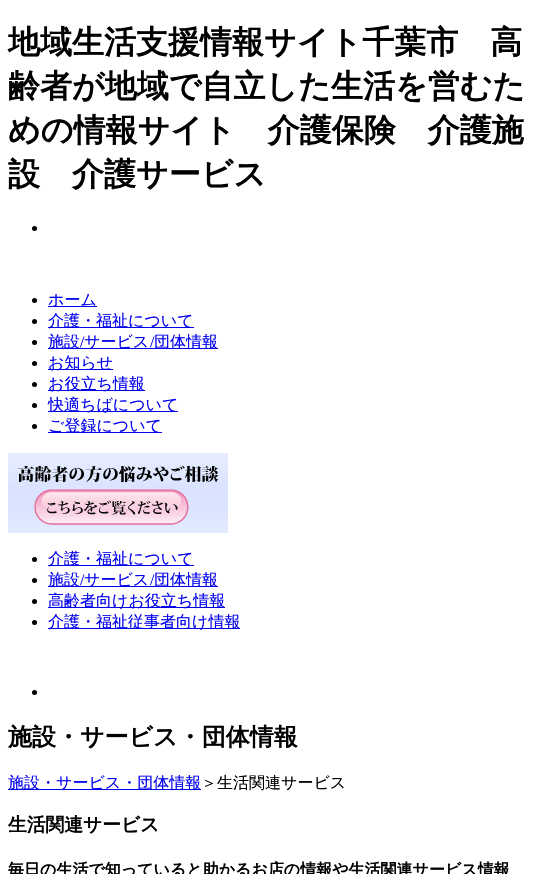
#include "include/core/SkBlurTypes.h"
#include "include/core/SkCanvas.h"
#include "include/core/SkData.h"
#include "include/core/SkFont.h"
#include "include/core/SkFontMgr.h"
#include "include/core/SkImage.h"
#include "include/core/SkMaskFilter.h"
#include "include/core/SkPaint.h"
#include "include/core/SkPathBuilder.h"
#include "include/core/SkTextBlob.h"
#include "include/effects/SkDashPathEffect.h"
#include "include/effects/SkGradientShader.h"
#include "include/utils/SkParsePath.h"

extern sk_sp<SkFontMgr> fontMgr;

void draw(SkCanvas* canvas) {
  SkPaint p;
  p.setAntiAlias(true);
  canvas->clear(SK_ColorWHITE);
  p.setColor(SK_ColorBLACK);
  canvas->drawCircle(34.5f, 228.5f, 2.5f, p);
  canvas->drawCircle(34.5f, 300.5f, 2.5f, p);
  p.setColor(SkColorSetRGB(0, 0, 238));
  canvas->drawRect(SkRect::MakeLTRB(48, 306, 97, 307), p);
  p.setColor(SK_ColorBLACK);
  canvas->drawCircle(34.5f, 321.5f, 2.5f, p);
  p.setColor(SkColorSetRGB(0, 0, 238));
  canvas->drawRect(SkRect::MakeLTRB(48, 327, 194, 328), p);
  p.setColor(SK_ColorBLACK);
  canvas->drawCircle(34.5f, 342.5f, 2.5f, p);
  p.setColor(SkColorSetRGB(0, 0, 238));
  canvas->drawRect(SkRect::MakeLTRB(48, 348, 218, 349), p);
  p.setColor(SK_ColorBLACK);
  canvas->drawCircle(34.5f, 363.5f, 2.5f, p);
  p.setColor(SkColorSetRGB(0, 0, 238));
  canvas->drawRect(SkRect::MakeLTRB(48, 369, 113, 370), p);
  p.setColor(SK_ColorBLACK);
  canvas->drawCircle(34.5f, 384.5f, 2.5f, p);
  p.setColor(SkColorSetRGB(0, 0, 238));
  canvas->drawRect(SkRect::MakeLTRB(48, 390, 145, 391), p);
  p.setColor(SK_ColorBLACK);
  canvas->drawCircle(34.5f, 405.5f, 2.5f, p);
  p.setColor(SkColorSetRGB(0, 0, 238));
  canvas->drawRect(SkRect::MakeLTRB(48, 411, 178, 412), p);
  p.setColor(SK_ColorBLACK);
  canvas->drawCircle(34.5f, 426.5f, 2.5f, p);
  p.setColor(SkColorSetRGB(0, 0, 238));
  canvas->drawRect(SkRect::MakeLTRB(48, 432, 162, 433), p);
  canvas->drawImageRect(SkImages::DeferredFromEncodedData(SkData::MakeFromFileName("images/1.png")), SkRect::MakeLTRB(8, 453, 228, 533), SkSamplingOptions());
  p.setColor(SK_ColorBLACK);
  canvas->drawCircle(34.5f, 559.5f, 2.5f, p);
  p.setColor(SkColorSetRGB(0, 0, 238));
  canvas->drawRect(SkRect::MakeLTRB(48, 565, 194, 566), p);
  p.setColor(SK_ColorBLACK);
  canvas->drawCircle(34.5f, 580.5f, 2.5f, p);
  p.setColor(SkColorSetRGB(0, 0, 238));
  canvas->drawRect(SkRect::MakeLTRB(48, 586, 218, 587), p);
  p.setColor(SK_ColorBLACK);
  canvas->drawCircle(34.5f, 601.5f, 2.5f, p);
  p.setColor(SkColorSetRGB(0, 0, 238));
  canvas->drawRect(SkRect::MakeLTRB(48, 607, 225, 608), p);
  p.setColor(SK_ColorBLACK);
  canvas->drawCircle(34.5f, 622.5f, 2.5f, p);
  p.setColor(SkColorSetRGB(0, 0, 238));
  canvas->drawRect(SkRect::MakeLTRB(48, 628, 240, 629), p);
  p.setColor(SK_ColorBLACK);
  canvas->drawCircle(34.5f, 692.5f, 2.5f, p);
  p.setColor(SkColorSetRGB(0, 0, 238));
  canvas->drawRect(SkRect::MakeLTRB(8, 789, 201, 790), p);
  SkFont font1(fontMgr->matchFamilyStyle("WenQuanYi Zen Hei", SkFontStyle::Bold()), 32);
  font1.setSubpixel(true);
  p.setColor(SK_ColorBLACK);
  canvas->drawString("地域生活支援情報サイト千葉市　高", 8, 53, font1, p);
  canvas->drawString("齢者が地域で自立した生活を営むた", 8, 97, font1, p);
  canvas->drawString("めの情報サイト　介護保険　介護施", 8, 141, font1, p);
  canvas->drawString("設　介護サービス", 8, 185, font1, p);
  SkFont font2(fontMgr->matchFamilyStyle("WenQuanYi Zen Hei", SkFontStyle(500, SkFontStyle::kNormal_Width, SkFontStyle::kUpright_Slant)), 16);
  font2.setSubpixel(true);
  p.setColor(SkColorSetRGB(0, 0, 238));
  canvas->drawString("ホーム", 48, 305, font2, p);
  canvas->drawString("介護・福祉について", 48, 326, font2, p);
  canvas->drawString("施設", 48, 347, font2, p);
  SkFont font3(fontMgr->matchFamilyStyle("Liberation Serif", SkFontStyle::Normal()), 16);
  font3.setSubpixel(true);
  canvas->drawString("/", 80, 347, font3, p);
  canvas->drawString("サービス", 84, 347, font2, p);
  canvas->drawString("/", 150, 347, font3, p);
  canvas->drawString("団体情報", 154, 347, font2, p);
  canvas->drawString("お知らせ", 48, 368, font2, p);
  canvas->drawString("お役立ち情報", 48, 389, font2, p);
  canvas->drawString("快適ちばについて", 48, 410, font2, p);
  canvas->drawString("ご登録について", 48, 431, font2, p);
  canvas->drawString("介護・福祉について", 48, 564, font2, p);
  canvas->drawString("施設", 48, 585, font2, p);
  canvas->drawString("/", 80, 585, font3, p);
  canvas->drawString("サービス", 84, 585, font2, p);
  canvas->drawString("/", 150, 585, font3, p);
  canvas->drawString("団体情報", 154, 585, font2, p);
  canvas->drawString("高齢者向けお役立ち情報", 48, 606, font2, p);
  canvas->drawString("介護・福祉従事者向け情報", 48, 627, font2, p);
  SkFont font4(fontMgr->matchFamilyStyle("WenQuanYi Zen Hei", SkFontStyle::Bold()), 24);
  font4.setSubpixel(true);
  p.setColor(SK_ColorBLACK);
  canvas->drawString("施設・サービス・団体情報", 8, 745, font4, p);
  p.setColor(SkColorSetRGB(0, 0, 238));
  canvas->drawString("施設・サービス・団体情報", 8, 788, font2, p);
  p.setColor(SK_ColorBLACK);
  canvas->drawString("＞生活関連サービス", 201, 788, font2, p);
  SkFont font5(fontMgr->matchFamilyStyle("WenQuanYi Zen Hei", SkFontStyle::Bold()), 18.75f);
  font5.setSubpixel(true);
  canvas->drawString("生活関連サービス", 8, 831, font5, p);
  SkFont font6(fontMgr->matchFamilyStyle("WenQuanYi Zen Hei", SkFontStyle::Bold()), 16);
  font6.setSubpixel(true);
  canvas->drawString("毎日の生活で知っていると助かるお店の情報や生活関連サービス情報", 8, 875, font6, p);
}
